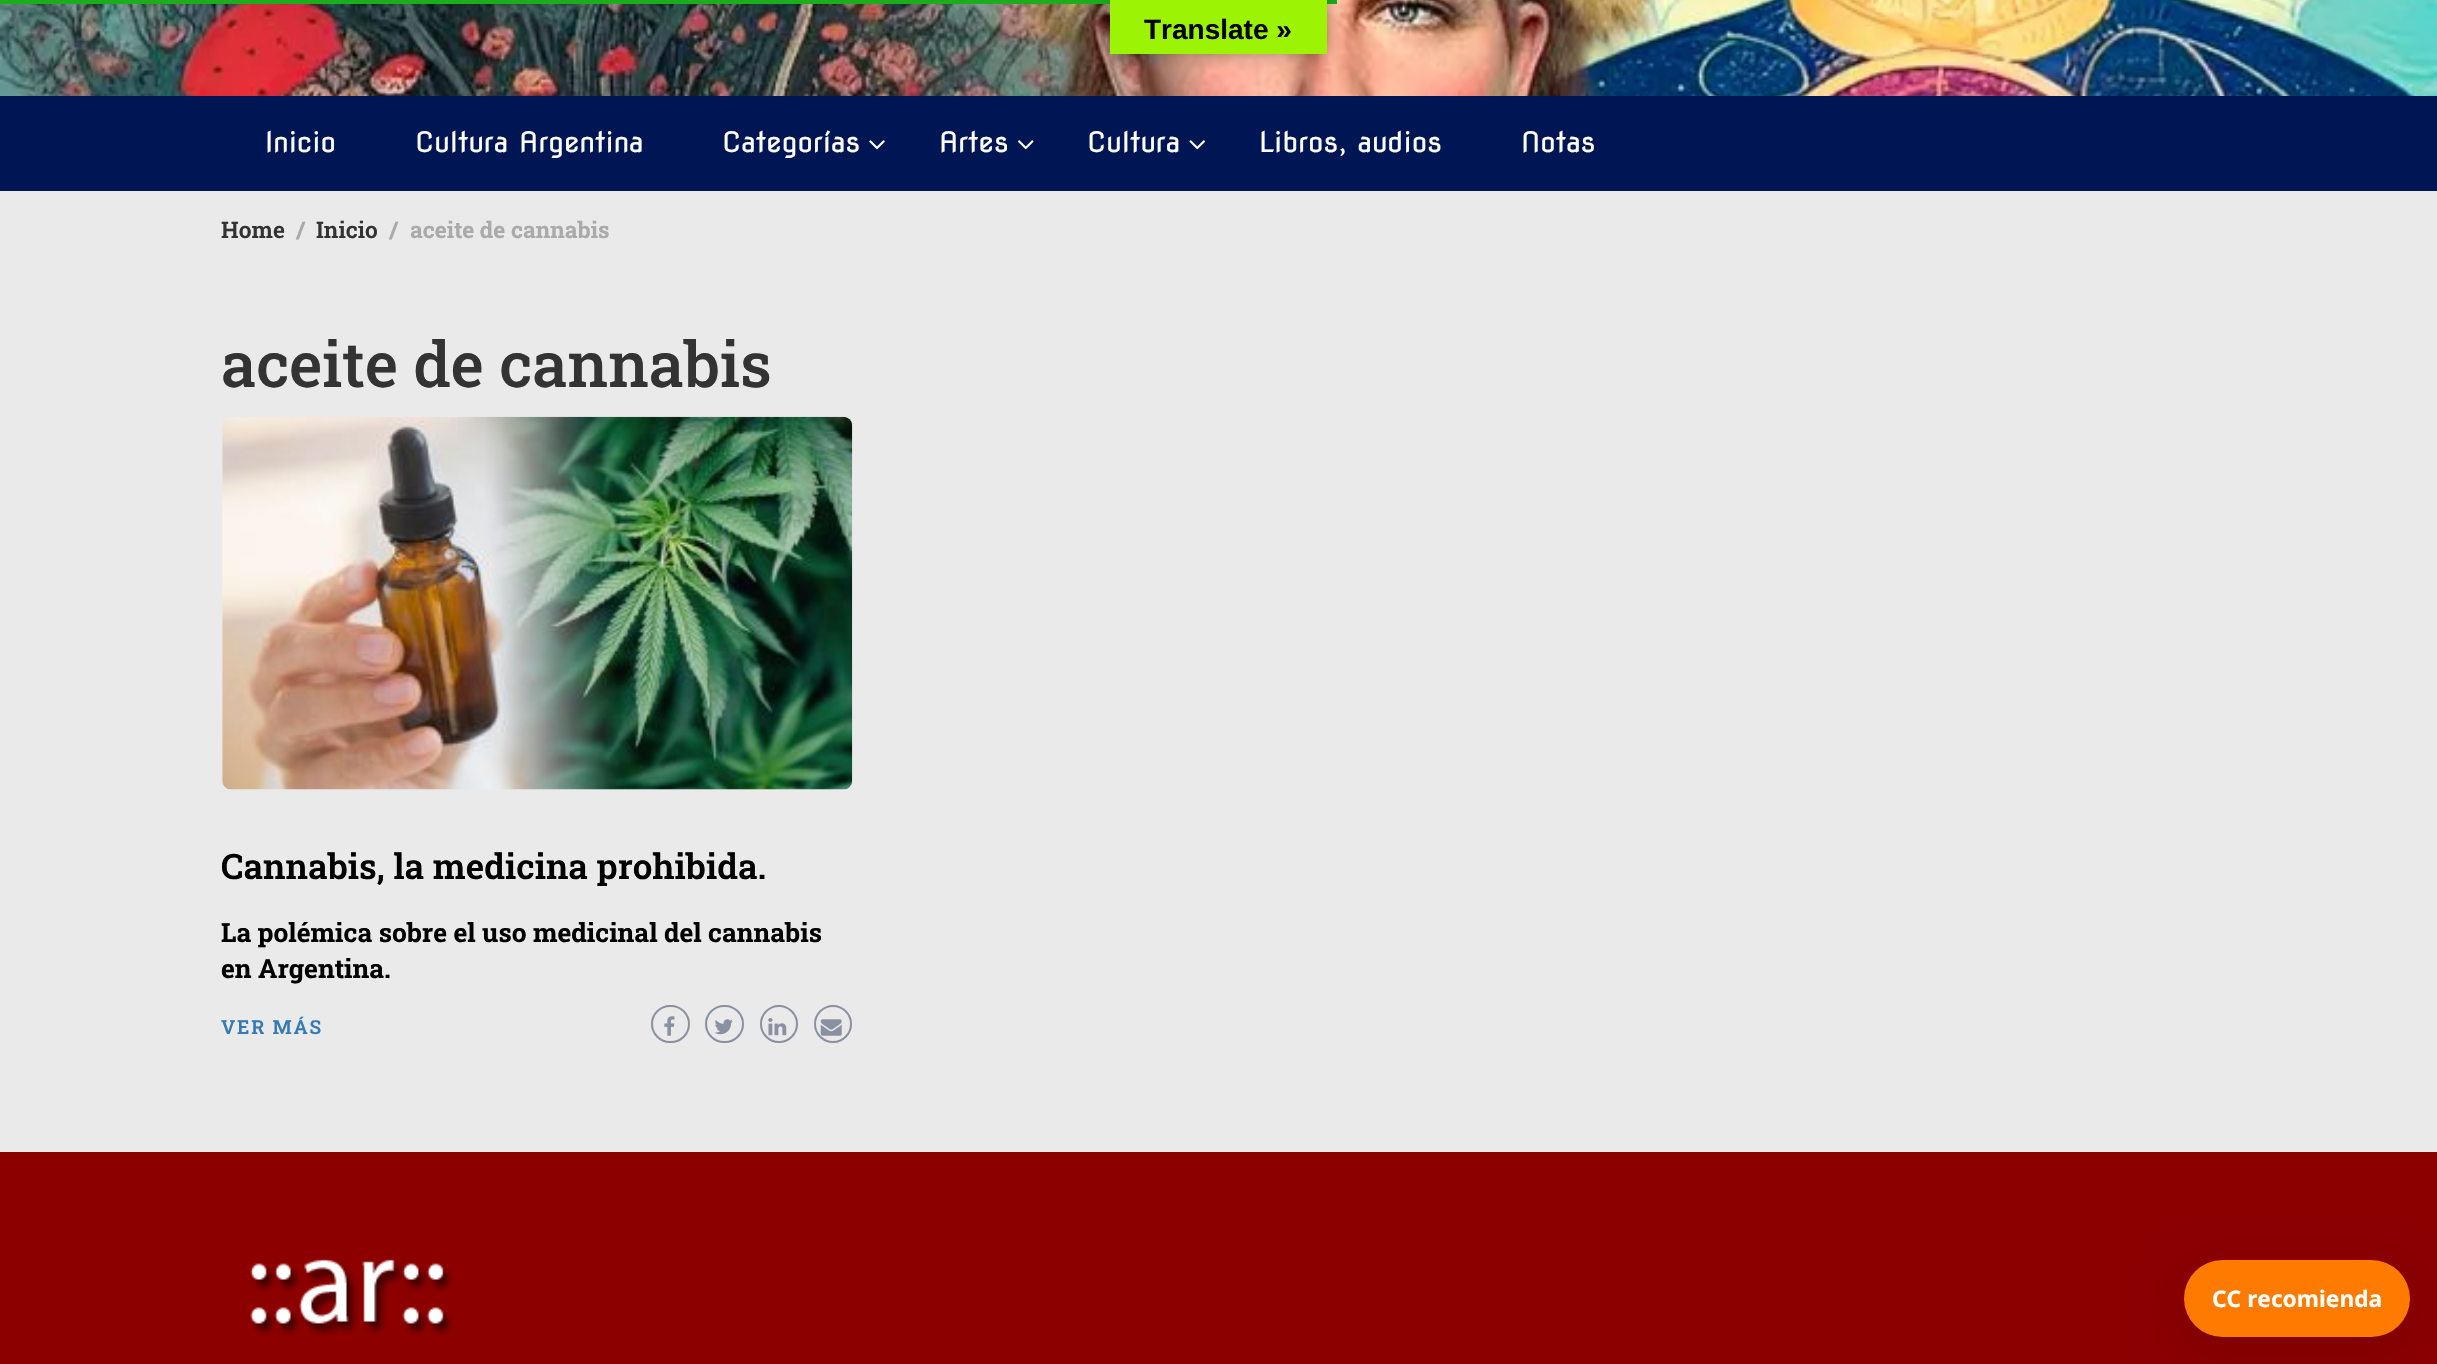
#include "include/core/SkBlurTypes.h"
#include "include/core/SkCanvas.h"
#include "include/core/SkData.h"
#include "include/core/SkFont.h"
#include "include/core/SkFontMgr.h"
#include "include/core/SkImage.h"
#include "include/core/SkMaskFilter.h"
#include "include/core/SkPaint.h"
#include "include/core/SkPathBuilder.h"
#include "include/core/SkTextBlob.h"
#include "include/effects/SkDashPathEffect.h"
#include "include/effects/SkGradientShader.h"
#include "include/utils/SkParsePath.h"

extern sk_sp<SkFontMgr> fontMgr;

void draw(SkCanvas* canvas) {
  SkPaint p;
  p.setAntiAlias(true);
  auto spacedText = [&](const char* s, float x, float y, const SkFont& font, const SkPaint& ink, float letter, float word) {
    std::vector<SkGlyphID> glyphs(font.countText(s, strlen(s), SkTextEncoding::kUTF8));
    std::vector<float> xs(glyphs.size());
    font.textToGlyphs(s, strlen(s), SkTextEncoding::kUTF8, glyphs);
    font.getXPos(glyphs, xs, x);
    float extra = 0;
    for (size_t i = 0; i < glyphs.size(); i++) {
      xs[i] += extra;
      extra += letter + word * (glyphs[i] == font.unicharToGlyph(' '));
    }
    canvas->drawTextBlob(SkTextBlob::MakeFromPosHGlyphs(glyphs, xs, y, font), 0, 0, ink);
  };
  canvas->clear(SkColorSetRGB(234, 234, 234));
  canvas->drawImageRect(SkImages::DeferredFromEncodedData(SkData::MakeFromFileName("images/1.png")), SkRect::MakeLTRB(0, 0, 2437, 96), SkSamplingOptions());
  p.setColor(SkColorSetRGB(27, 173, 27));
  canvas->drawRect(SkRect::MakeLTRB(0, 0, 1337, 4), p);
  p.setColor(SkColorSetARGB(77, 0, 0, 0));
  p.setMaskFilter(SkMaskFilter::MakeBlur(kNormal_SkBlurStyle, 8));
  canvas->drawRect(SkRect::MakeLTRB(1110, 0, 1327, 54), p);
  p.setMaskFilter(nullptr);
  p.setColor(SkColorSetRGB(156, 244, 4));
  canvas->drawRect(SkRect::MakeLTRB(1110, 0, 1327, 54), p);
  p.setColor(SkColorSetRGB(0, 22, 84));
  canvas->drawRect(SkRect::MakeLTRB(0, 96, 2437, 191), p);
  canvas->drawImageRect(SkImages::DeferredFromEncodedData(SkData::MakeFromFileName("images/2.png")), SkRect::MakeLTRB(869, 140, 885, 150), SkSamplingOptions());
  canvas->drawImageRect(SkImages::DeferredFromEncodedData(SkData::MakeFromFileName("images/3.png")), SkRect::MakeLTRB(1018, 140, 1034, 150), SkSamplingOptions());
  canvas->drawImageRect(SkImages::DeferredFromEncodedData(SkData::MakeFromFileName("images/4.png")), SkRect::MakeLTRB(1189, 140, 1205, 150), SkSamplingOptions());
  canvas->drawImageRect(SkImages::DeferredFromEncodedData(SkData::MakeFromFileName("images/5.png")), SkRect::MakeLTRB(222, 416, 853, 790), SkSamplingOptions());
  p.setStyle(SkPaint::kStroke_Style);
  p.setStrokeWidth(2);
  p.setColor(SkColorSetRGB(137, 144, 160));
  canvas->drawRoundRect(SkRect::MakeLTRB(652, 1006, 689, 1042), 18, 18, p);
  canvas->drawImageRect(SkImages::DeferredFromEncodedData(SkData::MakeFromFileName("images/6.png")), SkRect::MakeLTRB(664, 1016, 675, 1036), SkSamplingOptions());
  canvas->drawRoundRect(SkRect::MakeLTRB(706, 1006, 743, 1042), 18, 18, p);
  canvas->drawImageRect(SkImages::DeferredFromEncodedData(SkData::MakeFromFileName("images/7.png")), SkRect::MakeLTRB(714, 1019, 733, 1035), SkSamplingOptions());
  canvas->drawCircle(779, 1024, 18, p);
  canvas->drawImageRect(SkImages::DeferredFromEncodedData(SkData::MakeFromFileName("images/8.png")), SkRect::MakeLTRB(768, 1018, 787, 1036), SkSamplingOptions());
  canvas->drawCircle(833, 1024, 18, p);
  canvas->drawImageRect(SkImages::DeferredFromEncodedData(SkData::MakeFromFileName("images/9.png")), SkRect::MakeLTRB(820, 1019, 842, 1036), SkSamplingOptions());
  p.setStyle(SkPaint::kFill_Style);
  p.setColor(SkColorSetRGB(140, 0, 0));
  canvas->drawRect(SkRect::MakeLTRB(0, 1152, 2437, 1364), p);
  canvas->drawImageRect(SkImages::DeferredFromEncodedData(SkData::MakeFromFileName("images/10.png")), SkRect::MakeLTRB(250, 1259, 453, 1336), SkSamplingOptions());
  p.setColor(SkColorSetARGB(31, 0, 0, 0));
  p.setMaskFilter(SkMaskFilter::MakeBlur(kNormal_SkBlurStyle, 26));
  canvas->drawRoundRect(SkRect::MakeLTRB(2184, 1274, 2410, 1351), 38.5f, 38.5f, p);
  p.setMaskFilter(nullptr);
  p.setColor(SkColorSetRGB(255, 122, 0));
  canvas->drawRoundRect(SkRect::MakeLTRB(2184, 1260, 2410, 1337), 38.5f, 38.5f, p);
  SkFont font1(fontMgr->matchFamilyStyle("Liberation Sans", SkFontStyle::Bold()), 28);
  font1.setSubpixel(true);
  p.setColor(SK_ColorBLACK);
  canvas->drawString("Translate »", 1144, 39, font1, p);
  SkFont font2(fontMgr->matchFamilyStyle("Nova Flat", SkFontStyle::Normal()), 28);
  font2.setSubpixel(true);
  p.setColor(SK_ColorWHITE);
  canvas->drawString("Inicio", 265, 152, font2, p);
  canvas->drawString("Cultura Argentina", 415, 152, font2, p);
  canvas->drawString("Categorías", 722, 152, font2, p);
  canvas->drawString("Artes", 939, 152, font2, p);
  canvas->drawString("Cultura", 1087, 152, font2, p);
  canvas->drawString("Libros, audios", 1259, 152, font2, p);
  canvas->drawString("Notas", 1521, 152, font2, p);
  SkFont font3(fontMgr->matchFamilyStyle("Roboto Slab", SkFontStyle(600, SkFontStyle::kNormal_Width, SkFontStyle::kUpright_Slant)), 22.75f);
  font3.setSubpixel(true);
  p.setColor(SkColorSetRGB(51, 51, 51));
  canvas->drawString("Home", 221, 238, font3, p);
  SkFont font4(fontMgr->matchFamilyStyle("Roboto Slab", SkFontStyle::Bold()), 22.75f);
  font4.setSubpixel(true);
  p.setColor(SkColorSetRGB(170, 170, 170));
  canvas->drawString("/", 296, 238, font4, p);
  p.setColor(SkColorSetRGB(51, 51, 51));
  canvas->drawString("Inicio", 316, 238, font3, p);
  p.setColor(SkColorSetRGB(170, 170, 170));
  canvas->drawString("/", 389, 238, font4, p);
  canvas->drawString("aceite de cannabis", 410, 238, font4, p);
  SkFont font5(fontMgr->matchFamilyStyle("Roboto Slab", SkFontStyle(500, SkFontStyle::kNormal_Width, SkFontStyle::kUpright_Slant)), 63);
  font5.setSubpixel(true);
  p.setColor(SkColorSetRGB(51, 51, 51));
  canvas->drawString("aceite de cannabis", 221, 387, font5, p);
  SkFont font6(fontMgr->matchFamilyStyle("Roboto Slab", SkFontStyle(600, SkFontStyle::kNormal_Width, SkFontStyle::kUpright_Slant)), 35);
  font6.setSubpixel(true);
  p.setColor(SK_ColorBLACK);
  canvas->drawString("Cannabis, la medicina prohibida.", 221, 879, font6, p);
  SkFont font7(fontMgr->matchFamilyStyle("Roboto Slab", SkFontStyle::Bold()), 26.25f);
  font7.setSubpixel(true);
  canvas->drawString("La polémica sobre el uso medicinal del cannabis", 221, 942, font7, p);
  canvas->drawString("en Argentina.", 221, 978, font7, p);
  SkFont font8(fontMgr->matchFamilyStyle("Roboto Slab", SkFontStyle(600, SkFontStyle::kNormal_Width, SkFontStyle::kUpright_Slant)), 19.25f);
  font8.setSubpixel(true);
  p.setColor(SkColorSetRGB(51, 122, 183));
  spacedText("VER MÁS", 221, 1034, font8, p, 1.75f, 0);
  SkFont font9(fontMgr->matchFamilyStyle("Noto Sans", SkFontStyle::Bold()), 22.75f);
  font9.setSubpixel(true);
  p.setColor(SK_ColorWHITE);
  canvas->drawString("CC recomienda", 2212, 1307, font9, p);
}
